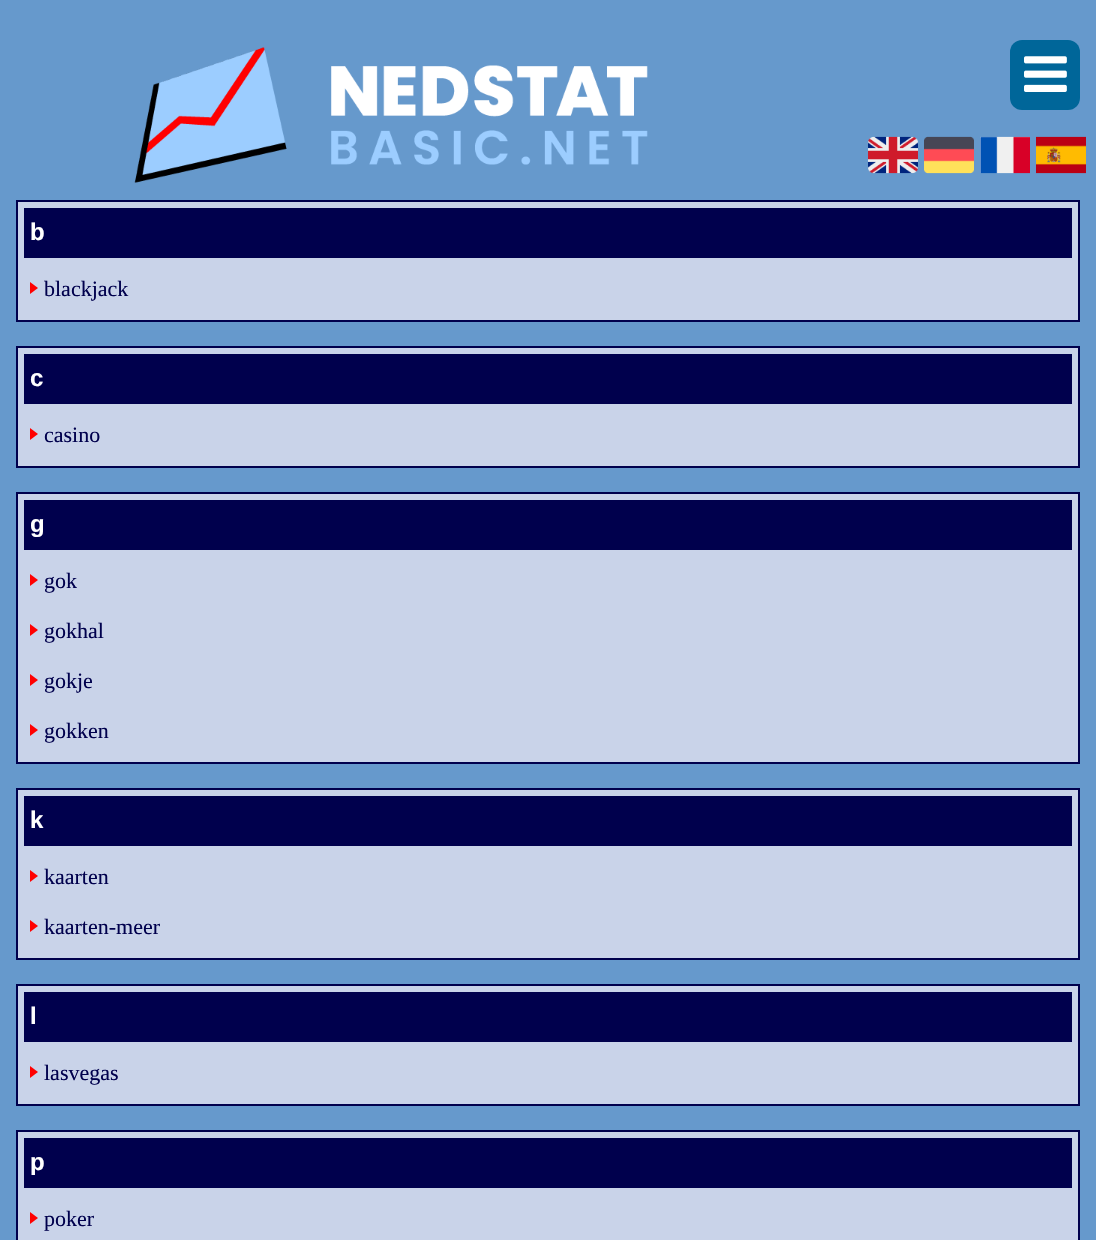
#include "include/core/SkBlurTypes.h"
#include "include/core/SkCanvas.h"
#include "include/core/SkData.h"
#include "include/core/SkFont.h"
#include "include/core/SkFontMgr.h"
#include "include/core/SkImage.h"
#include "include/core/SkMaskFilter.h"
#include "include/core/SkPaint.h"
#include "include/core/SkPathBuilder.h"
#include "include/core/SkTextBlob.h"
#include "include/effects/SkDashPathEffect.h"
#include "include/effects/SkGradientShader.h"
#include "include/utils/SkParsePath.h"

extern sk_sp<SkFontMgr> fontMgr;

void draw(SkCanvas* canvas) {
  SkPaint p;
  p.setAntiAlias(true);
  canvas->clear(SkColorSetRGB(102, 153, 204));
  canvas->drawImageRect(SkImages::DeferredFromEncodedData(SkData::MakeFromFileName("images/1.png")), SkRect::MakeLTRB(134, 47, 648, 183), SkSamplingOptions());
  p.setColor(SkColorSetRGB(0, 102, 153));
  canvas->drawRoundRect(SkRect::MakeLTRB(1010, 40, 1080, 110), 12, 12, p);
  canvas->drawImageRect(SkImages::DeferredFromEncodedData(SkData::MakeFromFileName("images/2.png")), SkRect::MakeLTRB(1024, 56, 1067, 92), SkSamplingOptions());
  canvas->drawImageRect(SkImages::DeferredFromEncodedData(SkData::MakeFromFileName("images/3.png")), SkRect::MakeLTRB(868, 136, 918, 174), SkSamplingOptions());
  canvas->drawImageRect(SkImages::DeferredFromEncodedData(SkData::MakeFromFileName("images/4.png")), SkRect::MakeLTRB(924, 136, 974, 174), SkSamplingOptions());
  canvas->drawImageRect(SkImages::DeferredFromEncodedData(SkData::MakeFromFileName("images/5.png")), SkRect::MakeLTRB(980, 136, 1030, 174), SkSamplingOptions());
  canvas->drawImageRect(SkImages::DeferredFromEncodedData(SkData::MakeFromFileName("images/6.png")), SkRect::MakeLTRB(1036, 136, 1086, 174), SkSamplingOptions());
  p.setColor(SkColorSetRGB(201, 211, 233));
  canvas->drawRect(SkRect::MakeLTRB(17, 201, 1079, 321), p);
  p.setStyle(SkPaint::kStroke_Style);
  p.setStrokeWidth(2);
  p.setColor(SkColorSetRGB(0, 0, 77));
  canvas->drawRect(SkRect::MakeLTRB(17, 201, 1079, 321), p);
  p.setStyle(SkPaint::kFill_Style);
  canvas->drawRect(SkRect::MakeLTRB(24, 208, 1072, 258), p);
  p.setColor(SkColorSetRGB(255, 0, 0));
  canvas->drawPath(SkPathBuilder().moveTo(30, 294).lineTo(30, 282).lineTo(38, 288).close().detach(), p);
  p.setColor(SkColorSetRGB(201, 211, 233));
  canvas->drawRect(SkRect::MakeLTRB(17, 347, 1079, 467), p);
  p.setStyle(SkPaint::kStroke_Style);
  p.setColor(SkColorSetRGB(0, 0, 77));
  canvas->drawRect(SkRect::MakeLTRB(17, 347, 1079, 467), p);
  p.setStyle(SkPaint::kFill_Style);
  canvas->drawRect(SkRect::MakeLTRB(24, 354, 1072, 404), p);
  p.setColor(SkColorSetRGB(255, 0, 0));
  canvas->drawPath(SkPathBuilder().moveTo(30, 440).lineTo(30, 428).lineTo(38, 434).close().detach(), p);
  p.setColor(SkColorSetRGB(201, 211, 233));
  canvas->drawRect(SkRect::MakeLTRB(17, 493, 1079, 763), p);
  p.setStyle(SkPaint::kStroke_Style);
  p.setColor(SkColorSetRGB(0, 0, 77));
  canvas->drawRect(SkRect::MakeLTRB(17, 493, 1079, 763), p);
  p.setStyle(SkPaint::kFill_Style);
  canvas->drawRect(SkRect::MakeLTRB(24, 500, 1072, 550), p);
  p.setColor(SkColorSetRGB(255, 0, 0));
  canvas->drawPath(SkPathBuilder().moveTo(30, 586).lineTo(30, 574).lineTo(38, 580).close().detach(), p);
  canvas->drawPath(SkPathBuilder().moveTo(30, 636).lineTo(30, 624).lineTo(38, 630).close().detach(), p);
  canvas->drawPath(SkPathBuilder().moveTo(30, 686).lineTo(30, 674).lineTo(38, 680).close().detach(), p);
  canvas->drawPath(SkPathBuilder().moveTo(30, 736).lineTo(30, 724).lineTo(38, 730).close().detach(), p);
  p.setColor(SkColorSetRGB(201, 211, 233));
  canvas->drawRect(SkRect::MakeLTRB(17, 789, 1079, 959), p);
  p.setStyle(SkPaint::kStroke_Style);
  p.setColor(SkColorSetRGB(0, 0, 77));
  canvas->drawRect(SkRect::MakeLTRB(17, 789, 1079, 959), p);
  p.setStyle(SkPaint::kFill_Style);
  canvas->drawRect(SkRect::MakeLTRB(24, 796, 1072, 846), p);
  p.setColor(SkColorSetRGB(255, 0, 0));
  canvas->drawPath(SkPathBuilder().moveTo(30, 882).lineTo(30, 870).lineTo(38, 876).close().detach(), p);
  canvas->drawPath(SkPathBuilder().moveTo(30, 932).lineTo(30, 920).lineTo(38, 926).close().detach(), p);
  p.setColor(SkColorSetRGB(201, 211, 233));
  canvas->drawRect(SkRect::MakeLTRB(17, 985, 1079, 1105), p);
  p.setStyle(SkPaint::kStroke_Style);
  p.setColor(SkColorSetRGB(0, 0, 77));
  canvas->drawRect(SkRect::MakeLTRB(17, 985, 1079, 1105), p);
  p.setStyle(SkPaint::kFill_Style);
  canvas->drawRect(SkRect::MakeLTRB(24, 992, 1072, 1042), p);
  p.setColor(SkColorSetRGB(255, 0, 0));
  canvas->drawPath(SkPathBuilder().moveTo(30, 1078).lineTo(30, 1066).lineTo(38, 1072).close().detach(), p);
  p.setColor(SkColorSetRGB(201, 211, 233));
  canvas->drawRect(SkRect::MakeLTRB(17, 1131, 1079, 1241), p);
  p.setStyle(SkPaint::kStroke_Style);
  p.setColor(SkColorSetRGB(0, 0, 77));
  canvas->drawRect(SkRect::MakeLTRB(17, 1131, 1079, 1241), p);
  p.setStyle(SkPaint::kFill_Style);
  canvas->drawRect(SkRect::MakeLTRB(24, 1138, 1072, 1188), p);
  p.setColor(SkColorSetRGB(255, 0, 0));
  canvas->drawPath(SkPathBuilder().moveTo(30, 1224).lineTo(30, 1212).lineTo(38, 1218).close().detach(), p);
  SkFont font1(fontMgr->matchFamilyStyle("Liberation Sans", SkFontStyle::Bold()), 24);
  font1.setSubpixel(true);
  p.setColor(SK_ColorWHITE);
  canvas->drawString("b", 30, 240, font1, p);
  SkFont font2(fontMgr->matchFamilyStyle("Liberation Serif", SkFontStyle::Normal()), 22);
  font2.setSubpixel(true);
  p.setColor(SkColorSetRGB(0, 0, 77));
  canvas->drawString("blackjack", 44, 296, font2, p);
  p.setColor(SK_ColorWHITE);
  canvas->drawString("c", 30, 386, font1, p);
  p.setColor(SkColorSetRGB(0, 0, 77));
  canvas->drawString("casino", 44, 442, font2, p);
  p.setColor(SK_ColorWHITE);
  canvas->drawString("g", 30, 532, font1, p);
  p.setColor(SkColorSetRGB(0, 0, 77));
  canvas->drawString("gok", 44, 588, font2, p);
  canvas->drawString("gokhal", 44, 638, font2, p);
  canvas->drawString("gokje", 44, 688, font2, p);
  canvas->drawString("gokken", 44, 738, font2, p);
  p.setColor(SK_ColorWHITE);
  canvas->drawString("k", 30, 828, font1, p);
  p.setColor(SkColorSetRGB(0, 0, 77));
  canvas->drawString("kaarten", 44, 884, font2, p);
  canvas->drawString("kaarten-meer", 44, 934, font2, p);
  p.setColor(SK_ColorWHITE);
  canvas->drawString("l", 30, 1024, font1, p);
  p.setColor(SkColorSetRGB(0, 0, 77));
  canvas->drawString("lasvegas", 44, 1080, font2, p);
  p.setColor(SK_ColorWHITE);
  canvas->drawString("p", 30, 1170, font1, p);
  p.setColor(SkColorSetRGB(0, 0, 77));
  canvas->drawString("poker", 44, 1226, font2, p);
}
